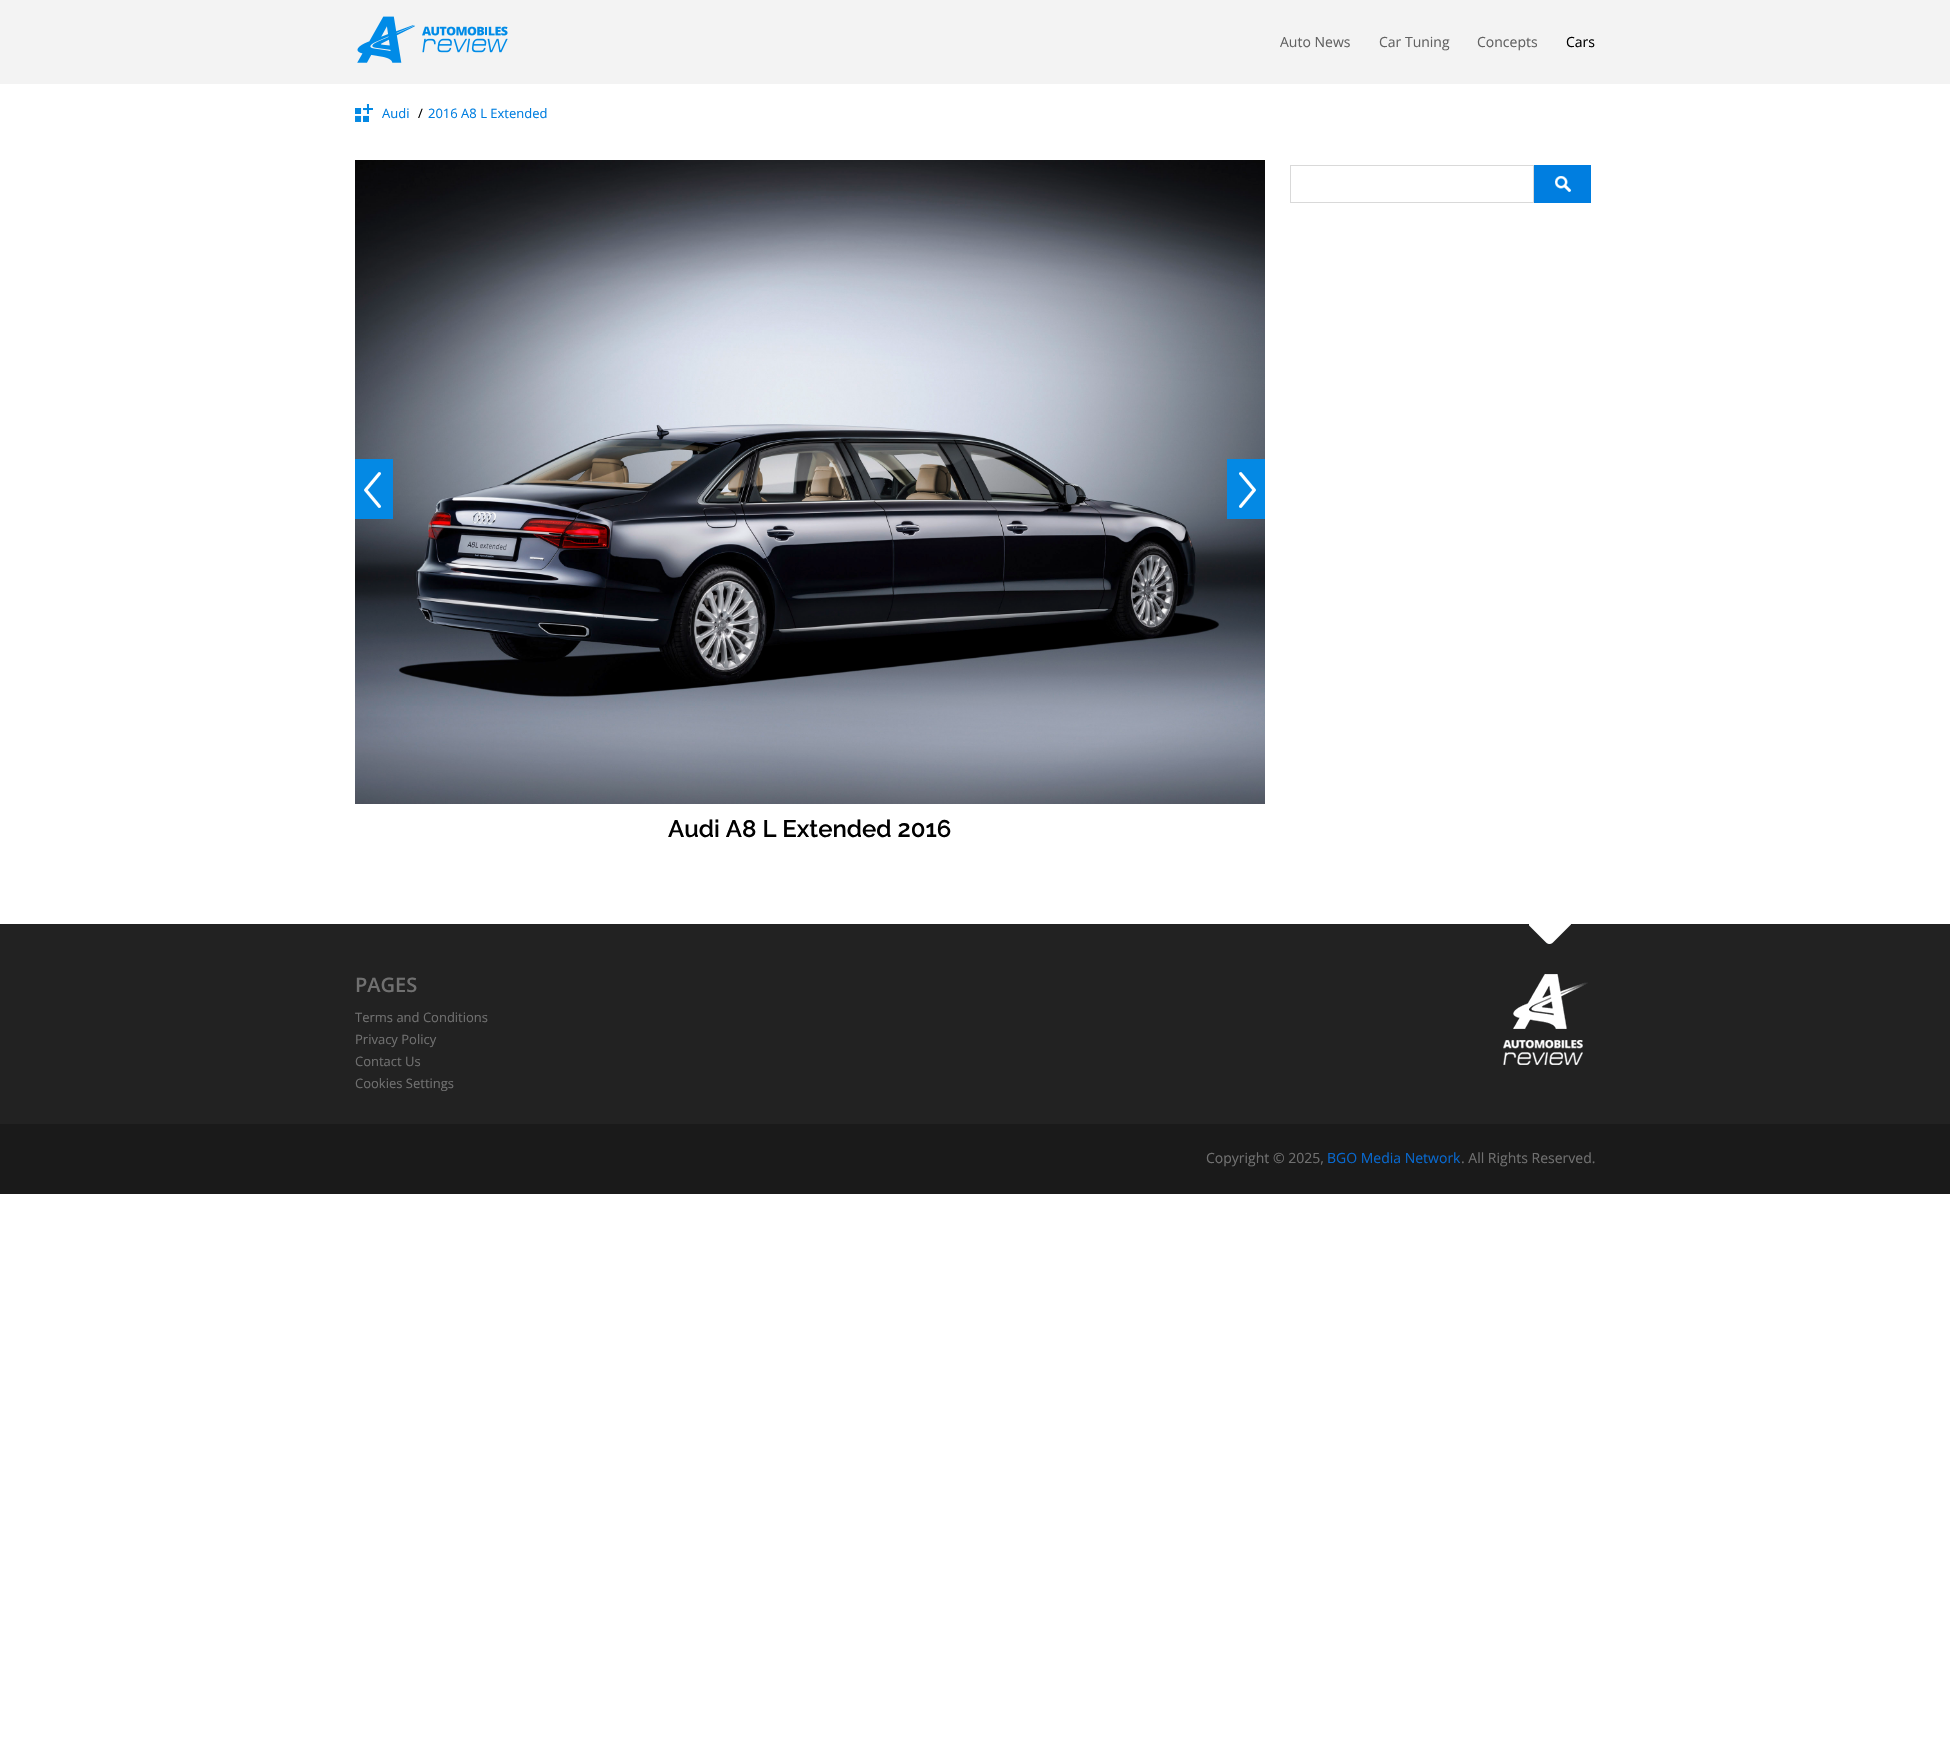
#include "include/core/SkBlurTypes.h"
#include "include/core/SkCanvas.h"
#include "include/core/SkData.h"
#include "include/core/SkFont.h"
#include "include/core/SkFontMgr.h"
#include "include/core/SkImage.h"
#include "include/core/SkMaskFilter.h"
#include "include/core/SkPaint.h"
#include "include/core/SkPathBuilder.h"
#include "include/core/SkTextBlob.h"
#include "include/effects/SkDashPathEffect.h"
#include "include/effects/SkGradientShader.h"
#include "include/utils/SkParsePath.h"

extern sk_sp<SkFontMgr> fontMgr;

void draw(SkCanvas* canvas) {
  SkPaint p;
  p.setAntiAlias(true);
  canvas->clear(SK_ColorWHITE);
  p.setColor(SkColorSetRGB(243, 243, 243));
  canvas->drawRect(SkRect::MakeLTRB(0, 0, 1950, 84), p);
  canvas->drawImageRect(SkImages::DeferredFromEncodedData(SkData::MakeFromFileName("images/1.png")), SkRect::MakeLTRB(357, 16, 508, 63), SkSamplingOptions());
  canvas->drawImageRect(SkImages::DeferredFromEncodedData(SkData::MakeFromFileName("images/2.png")), SkRect::MakeLTRB(355, 104, 373, 122), SkSamplingOptions());
  p.setStyle(SkPaint::kStroke_Style);
  p.setStrokeWidth(1);
  p.setColor(SkColorSetRGB(217, 217, 217));
  canvas->drawRect(SkRect::MakeLTRB(1290.5f, 165.5f, 1533.5f, 202.5f), p);
  canvas->drawImageRect(SkImages::DeferredFromEncodedData(SkData::MakeFromFileName("images/3.png")), SkRect::MakeLTRB(1534, 165, 1591, 203), SkSamplingOptions());
  canvas->drawImageRect(SkImages::DeferredFromEncodedData(SkData::MakeFromFileName("images/6.png")), SkRect::MakeLTRB(355, 160, 1265, 804), SkSamplingOptions());
  p.setStyle(SkPaint::kFill_Style);
  p.setColor(SkColorSetRGB(4, 137, 228));
  canvas->drawRect(SkRect::MakeLTRB(355, 459, 393, 519), p);
  canvas->drawImageRect(SkImages::DeferredFromEncodedData(SkData::MakeFromFileName("images/4.png")), SkRect::MakeLTRB(364, 472, 381, 508), SkSamplingOptions());
  canvas->drawRect(SkRect::MakeLTRB(1227, 459, 1265, 519), p);
  canvas->drawImageRect(SkImages::DeferredFromEncodedData(SkData::MakeFromFileName("images/5.png")), SkRect::MakeLTRB(1239, 472, 1256, 508), SkSamplingOptions());
  p.setColor(SkColorSetRGB(34, 34, 34));
  canvas->drawRect(SkRect::MakeLTRB(0, 924, 1950, 1124), p);
  canvas->drawImageRect(SkImages::DeferredFromEncodedData(SkData::MakeFromFileName("images/7.png")), SkRect::MakeLTRB(1529, 924, 1571, 944), SkSamplingOptions());
  canvas->drawImageRect(SkImages::DeferredFromEncodedData(SkData::MakeFromFileName("images/8.png")), SkRect::MakeLTRB(1503, 974, 1588, 1065), SkSamplingOptions());
  p.setColor(SkColorSetRGB(26, 26, 26));
  canvas->drawRect(SkRect::MakeLTRB(0, 1124, 1950, 1194), p);
  SkFont font1(fontMgr->matchFamilyStyle("Open Sans", SkFontStyle::Normal()), 14);
  font1.setSubpixel(true);
  p.setColor(SkColorSetRGB(98, 98, 98));
  canvas->drawString("Auto News", 1280, 47, font1, p);
  canvas->drawString("Car Tuning", 1379, 47, font1, p);
  canvas->drawString("Concepts", 1477, 47, font1, p);
  p.setColor(SK_ColorBLACK);
  canvas->drawString("Cars", 1566, 47, font1, p);
  SkFont font2(fontMgr->matchFamilyStyle("Open Sans", SkFontStyle::Normal()), 13);
  font2.setSubpixel(true);
  p.setColor(SkColorSetRGB(0, 126, 224));
  canvas->drawString("Audi", 382, 118, font2, p);
  p.setColor(SK_ColorBLACK);
  canvas->drawString("/", 418, 118, font2, p);
  p.setColor(SkColorSetRGB(0, 126, 224));
  canvas->drawString("2016 A8 L Extended", 428, 118, font2, p);
  SkFont font3(fontMgr->matchFamilyStyle("Raleway", SkFontStyle(600, SkFontStyle::kNormal_Width, SkFontStyle::kUpright_Slant)), 24);
  font3.setSubpixel(true);
  p.setColor(SK_ColorBLACK);
  canvas->drawString("Audi A8 L Extended 2016", 668, 837, font3, p);
  SkFont font4(fontMgr->matchFamilyStyle("Open Sans", SkFontStyle(600, SkFontStyle::kNormal_Width, SkFontStyle::kUpright_Slant)), 20);
  font4.setSubpixel(true);
  p.setColor(SkColorSetRGB(112, 112, 112));
  canvas->drawString("PAGES", 355, 992, font4, p);
  canvas->drawString("Terms and Conditions", 355, 1022, font2, p);
  canvas->drawString("Privacy Policy", 355, 1044, font2, p);
  canvas->drawString("Contact Us", 355, 1066, font2, p);
  canvas->drawString("Cookies Settings", 355, 1088, font2, p);
  canvas->drawString("Copyright © 2025,", 1206, 1163, font1, p);
  p.setColor(SkColorSetRGB(8, 104, 206));
  canvas->drawString("BGO Media Network", 1327, 1163, font1, p);
  p.setColor(SkColorSetRGB(112, 112, 112));
  canvas->drawString(". All Rights Reserved.", 1461, 1163, font1, p);
}
